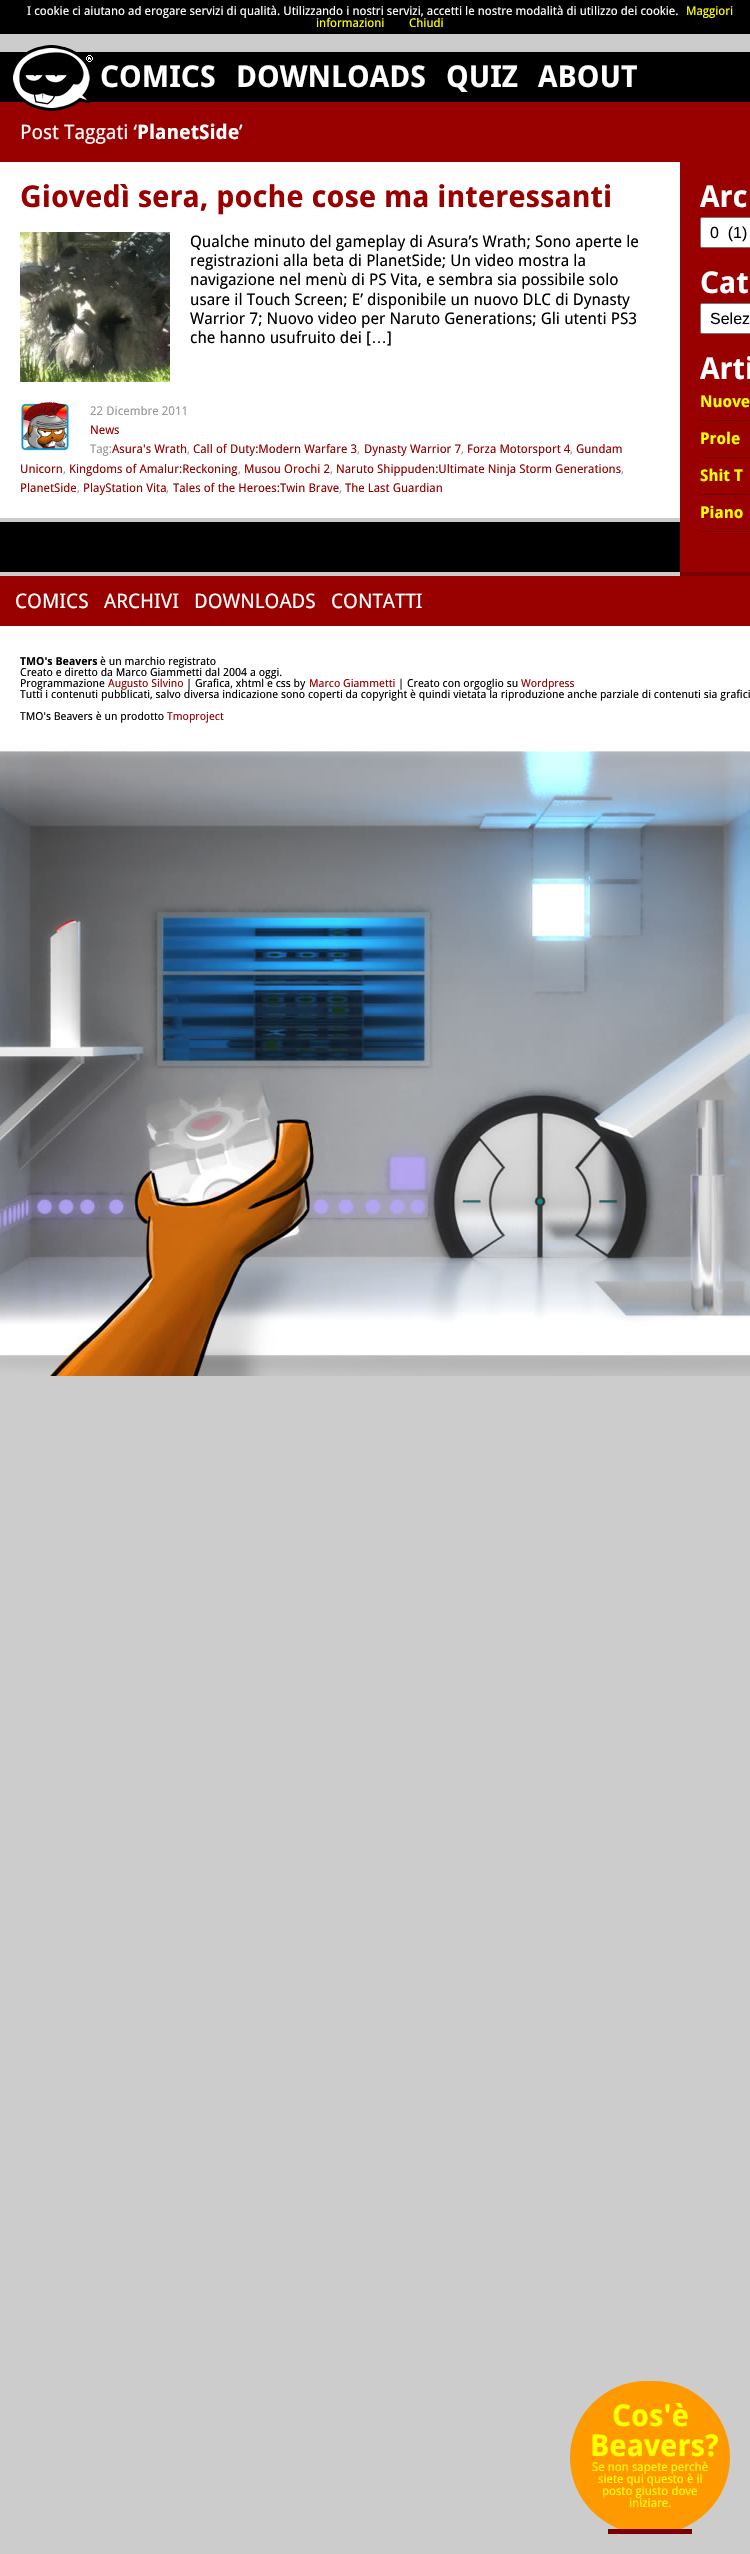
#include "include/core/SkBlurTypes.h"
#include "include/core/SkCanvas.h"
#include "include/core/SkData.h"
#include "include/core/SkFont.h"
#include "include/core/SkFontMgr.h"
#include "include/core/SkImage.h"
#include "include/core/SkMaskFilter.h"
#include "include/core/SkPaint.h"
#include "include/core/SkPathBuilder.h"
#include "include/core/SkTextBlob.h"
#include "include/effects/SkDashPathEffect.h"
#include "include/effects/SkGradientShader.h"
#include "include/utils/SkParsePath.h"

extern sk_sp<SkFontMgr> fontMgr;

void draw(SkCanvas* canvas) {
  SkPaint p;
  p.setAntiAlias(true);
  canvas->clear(SkColorSetRGB(204, 204, 204));
  p.setColor(SK_ColorBLACK);
  canvas->drawRect(SkRect::MakeLTRB(0, 0, 750, 34), p);
  canvas->drawRect(SkRect::MakeLTRB(0, 52, 750, 102), p);
  p.setColor(SkColorSetRGB(153, 0, 0));
  canvas->drawRect(SkRect::MakeLTRB(0, 102, 750, 162), p);
  canvas->drawImageRect(SkImages::DeferredFromEncodedData(SkData::MakeFromFileName("images/1.png")), SkRect::MakeLTRB(13, 45, 93, 111), SkSamplingOptions());
  p.setColor(SK_ColorWHITE);
  canvas->drawRect(SkRect::MakeLTRB(0, 162, 680, 518), p);
  canvas->drawImageRect(SkImages::DeferredFromEncodedData(SkData::MakeFromFileName("images/2.png")), SkRect::MakeLTRB(20, 232, 170, 382), SkSamplingOptions());
  canvas->drawImageRect(SkImages::DeferredFromEncodedData(SkData::MakeFromFileName("images/3.png")), SkRect::MakeLTRB(21, 402, 69, 451), SkSamplingOptions());
  p.setColor(SK_ColorBLACK);
  canvas->drawRect(SkRect::MakeLTRB(0, 522, 680, 572), p);
  p.setColor(SkColorSetRGB(153, 0, 0));
  canvas->drawRect(SkRect::MakeLTRB(680, 162, 750, 572), p);
  p.setColor(SkColorSetRGB(122, 0, 0));
  canvas->drawRect(SkRect::MakeLTRB(680, 572, 750, 576), p);
  p.setColor(SK_ColorWHITE);
  canvas->drawRoundRect(SkRect::MakeLTRB(700.5f, 217.5f, 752.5f, 247.5f), 1.5f, 1.5f, p);
  p.setStyle(SkPaint::kStroke_Style);
  p.setStrokeWidth(1);
  p.setColor(SkColorSetRGB(118, 118, 118));
  canvas->drawRoundRect(SkRect::MakeLTRB(700.5f, 217.5f, 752.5f, 247.5f), 1.5f, 1.5f, p);
  p.setStyle(SkPaint::kFill_Style);
  p.setColor(SK_ColorWHITE);
  canvas->drawRoundRect(SkRect::MakeLTRB(700.5f, 303.5f, 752.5f, 333.5f), 1.5f, 1.5f, p);
  p.setStyle(SkPaint::kStroke_Style);
  p.setColor(SkColorSetRGB(118, 118, 118));
  canvas->drawRoundRect(SkRect::MakeLTRB(700.5f, 303.5f, 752.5f, 333.5f), 1.5f, 1.5f, p);
  p.setStyle(SkPaint::kFill_Style);
  p.setColor(SkColorSetRGB(106, 0, 0));
  canvas->drawRect(SkRect::MakeLTRB(700, 420, 750, 421), p);
  canvas->drawRect(SkRect::MakeLTRB(700, 457, 750, 458), p);
  canvas->drawRect(SkRect::MakeLTRB(700, 494, 750, 495), p);
  canvas->drawRect(SkRect::MakeLTRB(700, 531, 750, 532), p);
  canvas->drawImageRect(SkImages::DeferredFromEncodedData(SkData::MakeFromFileName("images/4.png")), SkRect::MakeLTRB(0, 626, 750, 1376), SkSamplingOptions());
  p.setColor(SkColorSetRGB(153, 0, 0));
  canvas->drawRect(SkRect::MakeLTRB(0, 576, 750, 626), p);
  p.setColor(SkColorSetRGB(255, 153, 0));
  canvas->drawRoundRect(SkRect::MakeLTRB(570, 2381, 730, 2534), 76.5f, 76.5f, p);
  p.setColor(SkColorSetRGB(122, 0, 0));
  canvas->drawRect(SkRect::MakeLTRB(608, 2529, 692, 2534), p);
  SkFont font1(fontMgr->matchFamilyStyle("Droid Sans", SkFontStyle::Normal()), 12);
  font1.setSubpixel(true);
  p.setColor(SK_ColorWHITE);
  canvas->drawString("I cookie ci aiutano ad erogare servizi di qualità. Utilizzando i nostri servizi, accetti le nostre modalità di utilizzo dei cookie.", 27, 15, font1, p);
  p.setColor(SkColorSetRGB(255, 255, 0));
  canvas->drawString("Maggiori", 686, 15, font1, p);
  canvas->drawString("informazioni", 316, 27, font1, p);
  canvas->drawString("Chiudi", 409, 27, font1, p);
  SkFont font2(fontMgr->matchFamilyStyle("Droid Sans", SkFontStyle::Bold()), 30);
  font2.setSubpixel(true);
  p.setColor(SK_ColorWHITE);
  canvas->drawString("COMICS", 100, 87, font2, p);
  canvas->drawString("DOWNLOADS", 236, 87, font2, p);
  canvas->drawString("QUIZ", 446, 87, font2, p);
  canvas->drawString("ABOUT", 538, 87, font2, p);
  SkFont font3(fontMgr->matchFamilyStyle("Droid Sans", SkFontStyle::Normal()), 20);
  font3.setSubpixel(true);
  canvas->drawString("Post Taggati ‘", 20, 139, font3, p);
  SkFont font4(fontMgr->matchFamilyStyle("Droid Sans", SkFontStyle::Bold()), 20);
  font4.setSubpixel(true);
  canvas->drawString("PlanetSide", 137, 139, font4, p);
  canvas->drawString("’", 239, 139, font3, p);
  p.setColor(SkColorSetRGB(153, 0, 0));
  canvas->drawString("Giovedì sera, poche cose ma interessanti", 20, 207, font2, p);
  SkFont font5(fontMgr->matchFamilyStyle("Droid Sans", SkFontStyle::Normal()), 16);
  font5.setSubpixel(true);
  p.setColor(SK_ColorBLACK);
  canvas->drawString("Qualche minuto del gameplay di Asura’s Wrath; Sono aperte le", 190, 247, font5, p);
  canvas->drawString("registrazioni alla beta di PlanetSide; Un video mostra la", 190, 266, font5, p);
  canvas->drawString("navigazione nel menù di PS Vita, e sembra sia possibile solo", 190, 285, font5, p);
  canvas->drawString("usare il Touch Screen; E’ disponibile un nuovo DLC di Dynasty", 190, 305, font5, p);
  canvas->drawString("Warrior 7; Nuovo video per Naruto Generations; Gli utenti PS3", 190, 324, font5, p);
  canvas->drawString("che hanno usufruito dei [", 190, 343, font5, p);
  SkFont font6(fontMgr->matchFamilyStyle("Liberation Sans", SkFontStyle::Normal()), 16);
  font6.setSubpixel(true);
  canvas->drawString("…", 371, 343, font6, p);
  canvas->drawString("]", 387, 343, font5, p);
  p.setColor(SkColorSetRGB(153, 153, 153));
  canvas->drawString("22 Dicembre 2011", 90, 415, font1, p);
  p.setColor(SkColorSetRGB(153, 0, 0));
  canvas->drawString("News", 90, 434, font1, p);
  p.setColor(SkColorSetRGB(153, 153, 153));
  canvas->drawString("Tag:", 90, 453, font1, p);
  p.setColor(SkColorSetRGB(153, 0, 0));
  canvas->drawString("Asura's Wrath", 112, 453, font1, p);
  p.setColor(SkColorSetRGB(153, 153, 153));
  canvas->drawString(",", 187, 453, font1, p);
  p.setColor(SkColorSetRGB(153, 0, 0));
  canvas->drawString("Call of Duty:Modern Warfare 3", 193, 453, font1, p);
  p.setColor(SkColorSetRGB(153, 153, 153));
  canvas->drawString(",", 357, 453, font1, p);
  p.setColor(SkColorSetRGB(153, 0, 0));
  canvas->drawString("Dynasty Warrior 7", 364, 453, font1, p);
  p.setColor(SkColorSetRGB(153, 153, 153));
  canvas->drawString(",", 461, 453, font1, p);
  p.setColor(SkColorSetRGB(153, 0, 0));
  canvas->drawString("Forza Motorsport 4", 467, 453, font1, p);
  p.setColor(SkColorSetRGB(153, 153, 153));
  canvas->drawString(",", 570, 453, font1, p);
  p.setColor(SkColorSetRGB(153, 0, 0));
  canvas->drawString("Gundam", 576, 453, font1, p);
  canvas->drawString("Unicorn", 20, 473, font1, p);
  p.setColor(SkColorSetRGB(153, 153, 153));
  canvas->drawString(",", 63, 473, font1, p);
  p.setColor(SkColorSetRGB(153, 0, 0));
  canvas->drawString("Kingdoms of Amalur:Reckoning", 69, 473, font1, p);
  p.setColor(SkColorSetRGB(153, 153, 153));
  canvas->drawString(",", 238, 473, font1, p);
  p.setColor(SkColorSetRGB(153, 0, 0));
  canvas->drawString("Musou Orochi 2", 244, 473, font1, p);
  p.setColor(SkColorSetRGB(153, 153, 153));
  canvas->drawString(",", 330, 473, font1, p);
  p.setColor(SkColorSetRGB(153, 0, 0));
  canvas->drawString("Naruto Shippuden:Ultimate Ninja Storm Generations", 336, 473, font1, p);
  p.setColor(SkColorSetRGB(153, 153, 153));
  canvas->drawString(",", 621, 473, font1, p);
  p.setColor(SkColorSetRGB(153, 0, 0));
  canvas->drawString("PlanetSide", 20, 492, font1, p);
  p.setColor(SkColorSetRGB(153, 153, 153));
  canvas->drawString(",", 77, 492, font1, p);
  p.setColor(SkColorSetRGB(153, 0, 0));
  canvas->drawString("PlayStation Vita", 83, 492, font1, p);
  p.setColor(SkColorSetRGB(153, 153, 153));
  canvas->drawString(",", 166, 492, font1, p);
  p.setColor(SkColorSetRGB(153, 0, 0));
  canvas->drawString("Tales of the Heroes:Twin Brave", 173, 492, font1, p);
  p.setColor(SkColorSetRGB(153, 153, 153));
  canvas->drawString(",", 339, 492, font1, p);
  p.setColor(SkColorSetRGB(153, 0, 0));
  canvas->drawString("The Last Guardian", 345, 492, font1, p);
  p.setColor(SK_ColorWHITE);
  canvas->drawString("Arc", 700, 207, font2, p);
  p.setColor(SK_ColorBLACK);
  canvas->drawString("0  (1)", 710, 238, font6, p);
  p.setColor(SK_ColorWHITE);
  canvas->drawString("Cat", 700, 293, font2, p);
  p.setColor(SK_ColorBLACK);
  canvas->drawString("Selez", 710, 324, font6, p);
  p.setColor(SK_ColorWHITE);
  canvas->drawString("Arti", 700, 379, font2, p);
  SkFont font7(fontMgr->matchFamilyStyle("Droid Sans", SkFontStyle::Bold()), 16);
  font7.setSubpixel(true);
  p.setColor(SkColorSetRGB(255, 255, 0));
  canvas->drawString("Nuove", 700, 407, font7, p);
  canvas->drawString("Prole", 700, 444, font7, p);
  canvas->drawString("Shit T", 700, 481, font7, p);
  canvas->drawString("Piano", 700, 518, font7, p);
  p.setColor(SK_ColorWHITE);
  canvas->drawString("COMICS", 15, 608, font3, p);
  canvas->drawString("ARCHIVI", 104, 608, font3, p);
  canvas->drawString("DOWNLOADS", 194, 608, font3, p);
  canvas->drawString("CONTATTI", 331, 608, font3, p);
  SkFont font8(fontMgr->matchFamilyStyle("Droid Sans", SkFontStyle::Bold()), 11);
  font8.setSubpixel(true);
  p.setColor(SK_ColorBLACK);
  canvas->drawString("TMO's Beavers", 20, 665, font8, p);
  SkFont font9(fontMgr->matchFamilyStyle("Droid Sans", SkFontStyle::Normal()), 11);
  font9.setSubpixel(true);
  canvas->drawString("è un marchio registrato", 100, 665, font9, p);
  canvas->drawString("Creato e diretto da Marco Giammetti dal 2004 a oggi.", 20, 676, font9, p);
  canvas->drawString("Programmazione", 20, 687, font9, p);
  p.setColor(SkColorSetRGB(153, 0, 0));
  canvas->drawString("Augusto Silvino", 108, 687, font9, p);
  p.setColor(SK_ColorBLACK);
  canvas->drawString("| Grafica, xhtml e css by", 186, 687, font9, p);
  p.setColor(SkColorSetRGB(153, 0, 0));
  canvas->drawString("Marco Giammetti", 309, 687, font9, p);
  p.setColor(SK_ColorBLACK);
  canvas->drawString("| Creato con orgoglio su", 398, 687, font9, p);
  p.setColor(SkColorSetRGB(153, 0, 0));
  canvas->drawString("Wordpress", 521, 687, font9, p);
  p.setColor(SK_ColorBLACK);
  canvas->drawString("Tutti i contenuti pubblicati, salvo diversa indicazione sono coperti da copyright è quindi vietata la riproduzione anche parziale di contenuti sia grafici", 20, 698, font9, p);
  canvas->drawString("TMO's Beavers è un prodotto", 20, 720, font9, p);
  p.setColor(SkColorSetRGB(153, 0, 0));
  canvas->drawString("Tmoproject", 167, 720, font9, p);
  p.setColor(SkColorSetRGB(255, 255, 0));
  canvas->drawString("Cos'è", 612, 2426, font2, p);
  canvas->drawString("Beavers?", 590, 2456, font2, p);
  canvas->drawString("Se non sapete perchè", 592, 2471, font1, p);
  canvas->drawString("siete qui questo è il", 598, 2483, font1, p);
  canvas->drawString("posto giusto dove", 602, 2495, font1, p);
  canvas->drawString("iniziare.", 629, 2507, font1, p);
}
